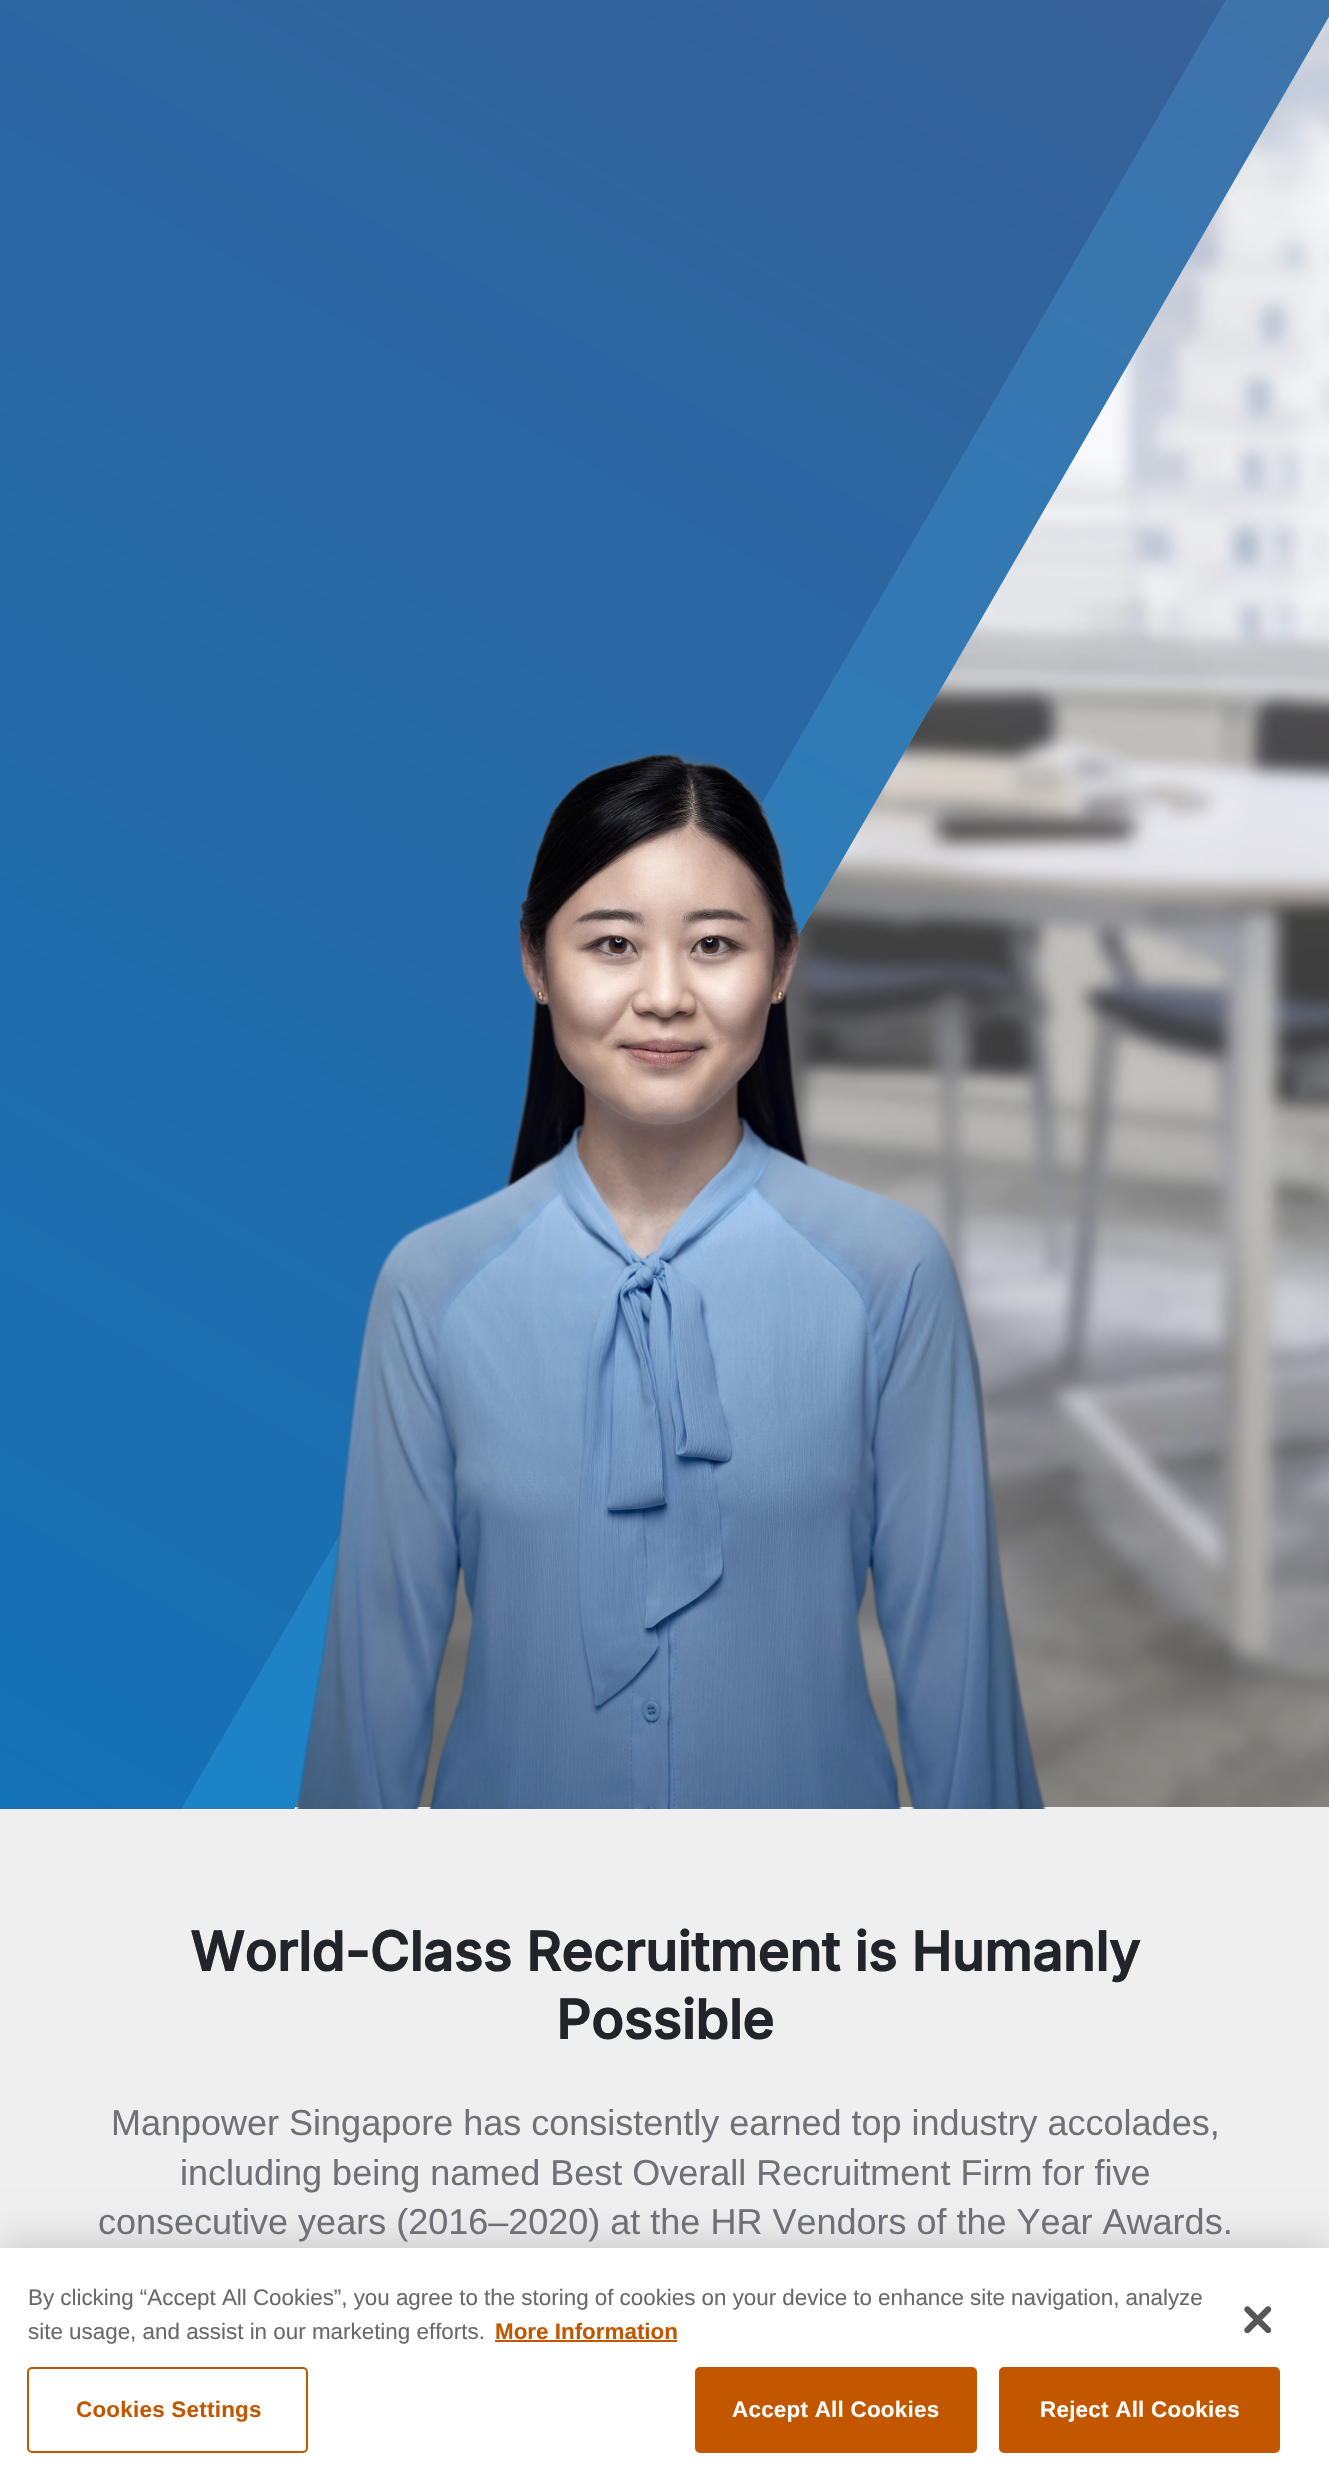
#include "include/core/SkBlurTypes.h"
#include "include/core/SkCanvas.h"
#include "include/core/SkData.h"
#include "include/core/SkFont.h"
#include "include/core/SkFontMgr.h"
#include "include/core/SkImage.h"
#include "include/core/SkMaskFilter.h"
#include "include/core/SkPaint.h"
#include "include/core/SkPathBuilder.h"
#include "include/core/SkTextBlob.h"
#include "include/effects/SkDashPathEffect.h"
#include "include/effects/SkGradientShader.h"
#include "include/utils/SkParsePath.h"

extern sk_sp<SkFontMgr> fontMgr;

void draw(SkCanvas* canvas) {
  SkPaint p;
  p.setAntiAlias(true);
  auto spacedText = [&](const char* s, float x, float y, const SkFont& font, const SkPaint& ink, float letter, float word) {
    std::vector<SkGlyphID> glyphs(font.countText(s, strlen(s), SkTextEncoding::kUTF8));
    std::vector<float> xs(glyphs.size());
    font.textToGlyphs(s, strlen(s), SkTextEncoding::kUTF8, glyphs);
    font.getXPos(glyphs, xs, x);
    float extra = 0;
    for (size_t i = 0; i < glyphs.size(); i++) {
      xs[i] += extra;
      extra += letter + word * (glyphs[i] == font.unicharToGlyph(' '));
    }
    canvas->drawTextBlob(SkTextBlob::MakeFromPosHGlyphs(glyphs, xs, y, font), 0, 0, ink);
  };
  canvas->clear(SK_ColorWHITE);
  canvas->drawImageRect(SkImages::DeferredFromEncodedData(SkData::MakeFromFileName("images/1.png")), SkRect::MakeLTRB(295, 16, 1329, 1807), SkSamplingOptions());
  p.setColor(SkColorSetRGB(239, 239, 239));
  canvas->drawRect(SkRect::MakeLTRB(0, 1807, 1329, 2248), p);
  p.setColor(SkColorSetRGB(86, 189, 237));
  canvas->drawPath(SkPathBuilder().moveTo(-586, -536).lineTo(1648, -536).lineTo(294, 1809).lineTo(-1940, 1809).close().detach(), p);
  {
    const SkColor colors[] = {SkColorSetARGB(204, 56, 96, 151), SkColorSetARGB(204, 2, 122, 197)};
    const float stops[] = {0, 1};
    const SkPoint ends[] = {{531, -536}, {-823, 1809}};
    p.setShader(SkGradientShader::MakeLinear(ends, colors, stops, 2, SkTileMode::kClamp));
    p.setAlpha(255);
  }
  canvas->drawPath(SkPathBuilder().moveTo(-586, -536).lineTo(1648, -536).lineTo(294, 1809).lineTo(-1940, 1809).close().detach(), p);
  p.setShader(nullptr);
  p.setColor(SkColorSetRGB(56, 96, 151));
  canvas->drawPath(SkPathBuilder().moveTo(-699, -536).lineTo(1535, -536).lineTo(181, 1809).lineTo(-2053, 1809).close().detach(), p);
  {
    const SkColor colors[] = {SkColorSetARGB(217, 56, 96, 151), SkColorSetARGB(204, 2, 122, 197)};
    const float stops[] = {0, 1};
    const SkPoint ends[] = {{418, -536}, {-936, 1809}};
    p.setShader(SkGradientShader::MakeLinear(ends, colors, stops, 2, SkTileMode::kClamp));
    p.setAlpha(255);
  }
  canvas->drawPath(SkPathBuilder().moveTo(-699, -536).lineTo(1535, -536).lineTo(181, 1809).lineTo(-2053, 1809).close().detach(), p);
  canvas->drawImageRect(SkImages::DeferredFromEncodedData(SkData::MakeFromFileName("images/2.png")), SkRect::MakeLTRB(295, 749, 1047, 1809), SkSamplingOptions());
  p.setShader(nullptr);
  p.setColor(SkColorSetARGB(51, 0, 0, 0));
  p.setMaskFilter(SkMaskFilter::MakeBlur(kNormal_SkBlurStyle, 20));
  canvas->drawRect(SkRect::MakeLTRB(0, 2248, 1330, 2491), p);
  p.setMaskFilter(nullptr);
  p.setColor(SK_ColorWHITE);
  canvas->drawRect(SkRect::MakeLTRB(0, 2248, 1329, 2490), p);
  p.setColor(SkColorSetRGB(194, 87, 0));
  canvas->drawRect(SkRect::MakeLTRB(495, 2340, 677, 2342), p);
  p.setStyle(SkPaint::kStroke_Style);
  p.setStrokeWidth(2);
  canvas->drawRoundRect(SkRect::MakeLTRB(28, 2368, 307, 2452), 4, 4, p);
  p.setStyle(SkPaint::kFill_Style);
  canvas->drawRoundRect(SkRect::MakeLTRB(696, 2368, 976, 2452), 4, 4, p);
  p.setStyle(SkPaint::kStroke_Style);
  canvas->drawRoundRect(SkRect::MakeLTRB(696, 2368, 976, 2452), 4, 4, p);
  p.setStyle(SkPaint::kFill_Style);
  canvas->drawRoundRect(SkRect::MakeLTRB(1000, 2368, 1279, 2452), 4, 4, p);
  p.setStyle(SkPaint::kStroke_Style);
  canvas->drawRoundRect(SkRect::MakeLTRB(1000, 2368, 1279, 2452), 4, 4, p);
  canvas->drawImageRect(SkImages::DeferredFromEncodedData(SkData::MakeFromFileName("images/3.png")), SkRect::MakeLTRB(1244, 2306, 1271, 2333), SkSamplingOptions());
  SkFont font1(fontMgr->matchFamilyStyle("Inter", SkFontStyle::Bold()), 54);
  font1.setSubpixel(true);
  p.setStyle(SkPaint::kFill_Style);
  p.setColor(SkColorSetRGB(33, 37, 41));
  canvas->drawString("World-Class Recruitment is Humanly", 190, 1971, font1, p);
  canvas->drawString("Possible", 556, 2039, font1, p);
  SkFont font2(fontMgr->matchFamilyStyle("Liberation Sans", SkFontStyle::Normal()), 36);
  font2.setSubpixel(true);
  p.setColor(SkColorSetRGB(112, 113, 118));
  canvas->drawString("Manpower Singapore has consistently earned top industry accolades,", 111, 2135, font2, p);
  canvas->drawString("including being named Best Overall Recruitment Firm for five", 180, 2185, font2, p);
  canvas->drawString("consecutive years (2016–2020) at the HR Vendors of the Year Awards.", 98, 2234, font2, p);
  SkFont font3(fontMgr->matchFamilyStyle("Liberation Sans", SkFontStyle::Normal()), 22.4f);
  font3.setSubpixel(true);
  p.setColor(SkColorSetRGB(105, 105, 105));
  spacedText("By clicking “Accept All Cookies”, you agree to the storing of cookies on your device to enhance site navigation, analyze", 28, 2305, font3, p, 0, -0.1f);
  canvas->drawString("site usage, and assist in our marketing efforts.", 28, 2339, font3, p);
  SkFont font4(fontMgr->matchFamilyStyle("Liberation Sans", SkFontStyle::Bold()), 22.4f);
  font4.setSubpixel(true);
  p.setColor(SkColorSetRGB(194, 87, 0));
  canvas->drawString("More Information", 495, 2339, font4, p);
  spacedText("Cookies Settings", 76, 2417, font4, p, 0.25f, 0);
  p.setColor(SK_ColorWHITE);
  spacedText("Accept All Cookies", 732, 2417, font4, p, 0.25f, 0);
  spacedText("Reject All Cookies", 1040, 2417, font4, p, 0.25f, 0);
}
